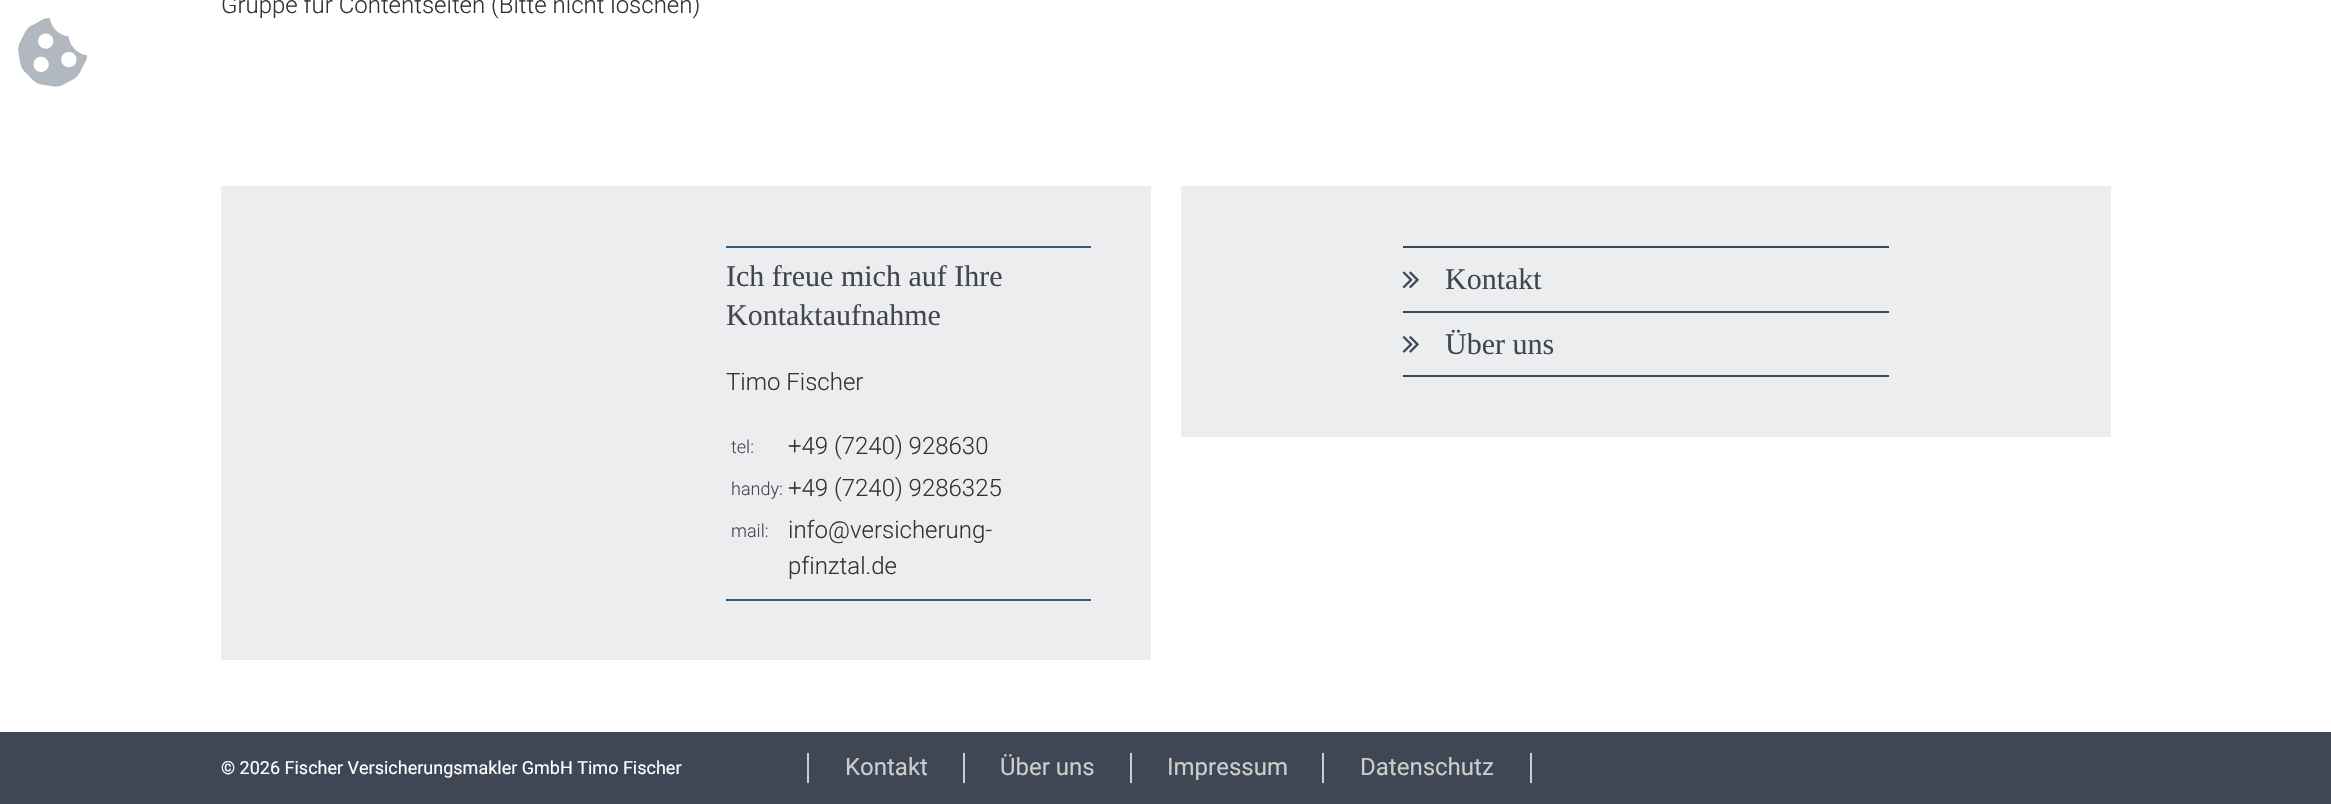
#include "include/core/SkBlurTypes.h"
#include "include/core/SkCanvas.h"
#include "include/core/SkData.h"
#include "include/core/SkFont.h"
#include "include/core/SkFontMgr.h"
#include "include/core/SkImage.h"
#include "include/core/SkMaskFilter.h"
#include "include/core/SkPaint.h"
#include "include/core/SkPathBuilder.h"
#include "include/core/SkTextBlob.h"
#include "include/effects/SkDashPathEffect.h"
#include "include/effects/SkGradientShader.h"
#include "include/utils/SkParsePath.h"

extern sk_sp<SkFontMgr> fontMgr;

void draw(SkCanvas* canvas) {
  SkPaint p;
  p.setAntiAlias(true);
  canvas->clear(SK_ColorWHITE);
  canvas->drawImageRect(SkImages::DeferredFromEncodedData(SkData::MakeFromFileName("images/1.png")), SkRect::MakeLTRB(18, 18, 87, 87), SkSamplingOptions());
  p.setColor(SkColorSetRGB(237, 237, 239));
  canvas->drawRect(SkRect::MakeLTRB(221, 186, 1151, 660), p);
  p.setColor(SkColorSetRGB(46, 92, 124));
  canvas->drawRect(SkRect::MakeLTRB(726, 246, 1091, 248), p);
  canvas->drawRect(SkRect::MakeLTRB(726, 599, 1091, 601), p);
  p.setColor(SkColorSetRGB(236, 237, 239));
  canvas->drawRect(SkRect::MakeLTRB(1181, 186, 2111, 437), p);
  p.setColor(SkColorSetRGB(63, 70, 84));
  canvas->drawRect(SkRect::MakeLTRB(1403, 246, 1889, 248), p);
  canvas->drawRect(SkRect::MakeLTRB(1403, 311, 1889, 313), p);
  canvas->drawImageRect(SkImages::DeferredFromEncodedData(SkData::MakeFromFileName("images/2.png")), SkRect::MakeLTRB(1402, 271, 1419, 289), SkSamplingOptions());
  canvas->drawRect(SkRect::MakeLTRB(1403, 375, 1889, 377), p);
  canvas->drawImageRect(SkImages::DeferredFromEncodedData(SkData::MakeFromFileName("images/3.png")), SkRect::MakeLTRB(1402, 336, 1419, 353), SkSamplingOptions());
  canvas->drawRect(SkRect::MakeLTRB(0, 732, 2331, 804), p);
  p.setColor(SkColorSetRGB(204, 204, 204));
  canvas->drawRect(SkRect::MakeLTRB(807, 753, 809, 783), p);
  canvas->drawRect(SkRect::MakeLTRB(963, 753, 965, 783), p);
  canvas->drawRect(SkRect::MakeLTRB(1130, 753, 1132, 783), p);
  canvas->drawRect(SkRect::MakeLTRB(1530, 753, 1532, 783), p);
  canvas->drawRect(SkRect::MakeLTRB(1322, 753, 1324, 783), p);
  SkFont font1(fontMgr->matchFamilyStyle("Roboto", SkFontStyle(300, SkFontStyle::kNormal_Width, SkFontStyle::kUpright_Slant)), 24);
  font1.setSubpixel(true);
  p.setColor(SkColorSetRGB(51, 51, 51));
  canvas->drawString("Gruppe für Contentseiten (Bitte nicht löschen)", 221, 13, font1, p);
  SkFont font2(fontMgr->matchFamilyStyle("Liberation Serif", SkFontStyle::Normal()), 30);
  font2.setSubpixel(true);
  p.setColor(SkColorSetRGB(63, 70, 84));
  canvas->drawString("Ich freue mich auf Ihre", 726, 286, font2, p);
  canvas->drawString("Kontaktaufnahme", 726, 325, font2, p);
  p.setColor(SkColorSetRGB(51, 51, 51));
  canvas->drawString("Timo Fischer", 726, 390, font1, p);
  SkFont font3(fontMgr->matchFamilyStyle("Roboto", SkFontStyle(300, SkFontStyle::kNormal_Width, SkFontStyle::kUpright_Slant)), 18);
  font3.setSubpixel(true);
  p.setColor(SkColorSetRGB(63, 70, 84));
  canvas->drawString("tel:", 731, 453, font3, p);
  p.setColor(SkColorSetRGB(51, 51, 51));
  canvas->drawString("+49 (7240) 928630", 788, 454, font1, p);
  p.setColor(SkColorSetRGB(63, 70, 84));
  canvas->drawString("handy:", 731, 495, font3, p);
  p.setColor(SkColorSetRGB(51, 51, 51));
  canvas->drawString("+49 (7240) 9286325", 788, 496, font1, p);
  p.setColor(SkColorSetRGB(63, 70, 84));
  canvas->drawString("mail:", 731, 537, font3, p);
  p.setColor(SkColorSetRGB(51, 51, 51));
  canvas->drawString("info@versicherung-", 788, 538, font1, p);
  canvas->drawString("pfinztal.de", 788, 574, font1, p);
  p.setColor(SkColorSetRGB(63, 70, 84));
  canvas->drawString("Kontakt", 1445, 289, font2, p);
  canvas->drawString("Über uns", 1445, 354, font2, p);
  SkFont font4(fontMgr->matchFamilyStyle("Roboto", SkFontStyle::Normal()), 18);
  font4.setSubpixel(true);
  p.setColor(SK_ColorWHITE);
  canvas->drawString("© 2026 Fischer Versicherungsmakler GmbH Timo Fischer", 221, 774, font4, p);
  SkFont font5(fontMgr->matchFamilyStyle("Roboto", SkFontStyle::Normal()), 24);
  font5.setSubpixel(true);
  p.setColor(SkColorSetRGB(204, 204, 204));
  canvas->drawString("Kontakt", 845, 775, font5, p);
  canvas->drawString("Über uns", 1000, 775, font5, p);
  canvas->drawString("Impressum", 1167, 775, font5, p);
  canvas->drawString("Datenschutz", 1360, 775, font5, p);
}
